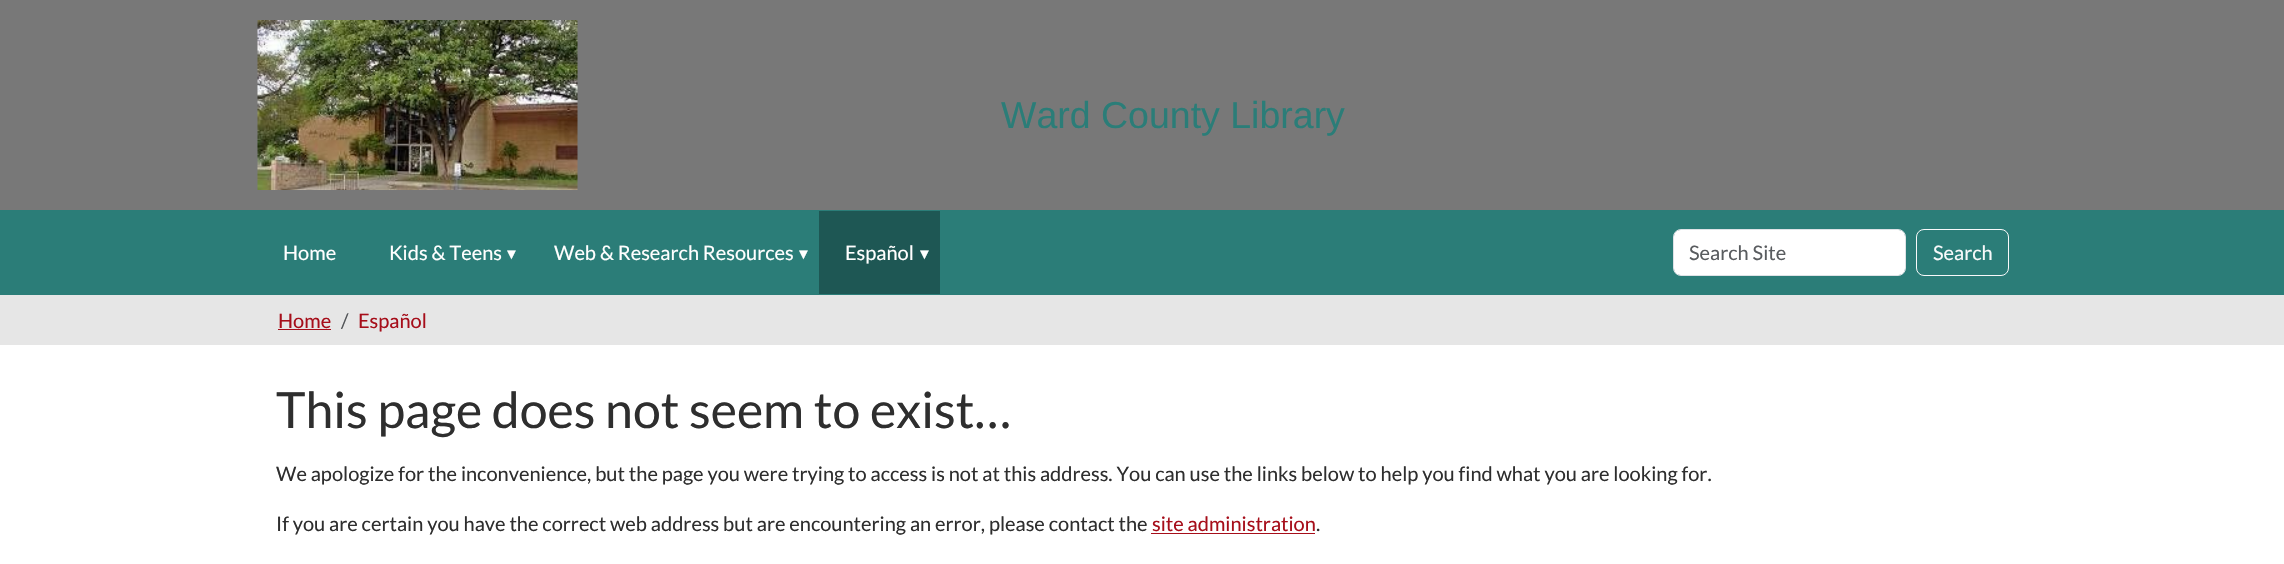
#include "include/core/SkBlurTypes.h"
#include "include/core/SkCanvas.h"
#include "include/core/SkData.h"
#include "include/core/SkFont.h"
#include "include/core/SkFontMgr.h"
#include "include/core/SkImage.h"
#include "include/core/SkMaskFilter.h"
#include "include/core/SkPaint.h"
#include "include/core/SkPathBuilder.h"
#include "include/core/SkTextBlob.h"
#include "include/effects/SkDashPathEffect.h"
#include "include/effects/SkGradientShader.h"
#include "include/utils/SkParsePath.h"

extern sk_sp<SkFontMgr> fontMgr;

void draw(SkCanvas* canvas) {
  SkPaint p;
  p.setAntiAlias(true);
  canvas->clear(SK_ColorWHITE);
  p.setColor(SkColorSetRGB(120, 120, 120));
  canvas->drawRect(SkRect::MakeLTRB(0, 0, 2284, 210), p);
  canvas->drawImageRect(SkImages::DeferredFromEncodedData(SkData::MakeFromFileName("images/1.png")), SkRect::MakeLTRB(257, 20, 578, 190), SkSamplingOptions());
  p.setColor(SkColorSetRGB(43, 125, 120));
  canvas->drawRect(SkRect::MakeLTRB(0, 210, 2284, 295), p);
  p.setColor(SkColorSetRGB(30, 87, 84));
  canvas->drawRect(SkRect::MakeLTRB(819, 211, 940, 294), p);
  p.setColor(SK_ColorWHITE);
  canvas->drawRoundRect(SkRect::MakeLTRB(1674, 230, 1905, 275), 6, 6, p);
  p.setStyle(SkPaint::kStroke_Style);
  p.setStrokeWidth(1);
  p.setColor(SkColorSetRGB(222, 226, 230));
  canvas->drawRoundRect(SkRect::MakeLTRB(1673.5f, 229.5f, 1905.5f, 275.5f), 7.5f, 7.5f, p);
  p.setColor(SkColorSetRGB(248, 249, 250));
  canvas->drawRoundRect(SkRect::MakeLTRB(1916.5f, 229.5f, 2008.5f, 275.5f), 7.5f, 7.5f, p);
  p.setStyle(SkPaint::kFill_Style);
  p.setColor(SkColorSetRGB(230, 230, 230));
  canvas->drawRect(SkRect::MakeLTRB(0, 295, 2284, 345), p);
  p.setColor(SkColorSetRGB(166, 14, 26));
  canvas->drawRect(SkRect::MakeLTRB(278, 329, 331, 330), p);
  canvas->drawRect(SkRect::MakeLTRB(1151, 533, 1315, 534), p);
  SkFont font1(fontMgr->matchFamilyStyle("Liberation Sans", SkFontStyle::Normal()), 37.5f);
  font1.setSubpixel(true);
  p.setColor(SkColorSetRGB(43, 125, 120));
  canvas->drawString("Ward County Library", 1001, 128, font1, p);
  SkFont font2(fontMgr->matchFamilyStyle("Lato", SkFontStyle::Normal()), 20);
  font2.setSubpixel(true);
  p.setColor(SK_ColorWHITE);
  canvas->drawString("Home", 283, 260, font2, p);
  canvas->drawString("Kids & Teens", 389, 260, font2, p);
  SkFont font3(fontMgr->matchFamilyStyle("Liberation Sans", SkFontStyle::Normal()), 15);
  font3.setSubpixel(true);
  canvas->drawString("▼", 504, 259, font3, p);
  canvas->drawString("Web & Research Resources", 554, 260, font2, p);
  canvas->drawString("▼", 796, 259, font3, p);
  canvas->drawString("Español", 845, 260, font2, p);
  canvas->drawString("▼", 917, 259, font3, p);
  p.setColor(SkColorSetRGB(89, 92, 95));
  canvas->drawString("Search Site", 1689, 260, font2, p);
  p.setColor(SkColorSetRGB(248, 249, 250));
  canvas->drawString("Search", 1933, 260, font2, p);
  p.setColor(SkColorSetRGB(166, 14, 26));
  canvas->drawString("Home", 278, 328, font2, p);
  p.setColor(SkColorSetRGB(82, 85, 88));
  canvas->drawString("/", 341, 328, font2, p);
  p.setColor(SkColorSetRGB(166, 14, 26));
  canvas->drawString("Español", 358, 328, font2, p);
  SkFont font4(fontMgr->matchFamilyStyle("Lato", SkFontStyle::Normal()), 50);
  font4.setSubpixel(true);
  p.setColor(SkColorSetRGB(46, 46, 46));
  canvas->drawString("This page does not seem to exist…", 276, 428, font4, p);
  canvas->drawString("We apologize for the inconvenience, but the page you were trying to access is not at this address. You can use the links below to help you find what you are looking for.", 276, 481, font2, p);
  canvas->drawString("If you are certain you have the correct web address but are encountering an error, please contact the", 276, 531, font2, p);
  p.setColor(SkColorSetRGB(166, 14, 26));
  canvas->drawString("site administration", 1152, 531, font2, p);
  p.setColor(SkColorSetRGB(46, 46, 46));
  canvas->drawString(".", 1316, 531, font2, p);
}
